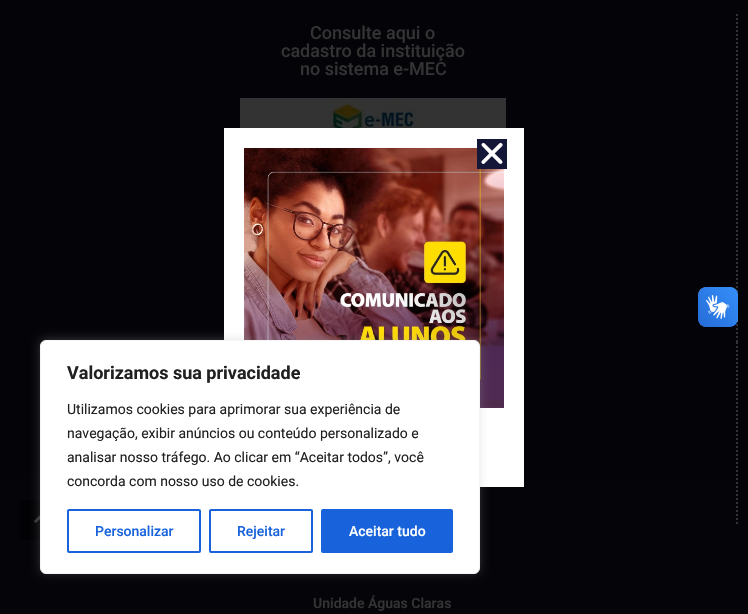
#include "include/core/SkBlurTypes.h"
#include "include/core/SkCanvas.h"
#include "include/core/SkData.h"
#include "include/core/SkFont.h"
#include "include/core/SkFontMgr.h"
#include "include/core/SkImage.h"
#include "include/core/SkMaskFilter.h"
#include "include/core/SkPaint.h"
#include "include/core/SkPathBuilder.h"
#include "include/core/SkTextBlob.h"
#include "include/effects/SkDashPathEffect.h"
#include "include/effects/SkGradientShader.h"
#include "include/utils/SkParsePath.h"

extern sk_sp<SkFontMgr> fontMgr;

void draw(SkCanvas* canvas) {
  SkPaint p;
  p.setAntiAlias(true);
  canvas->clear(SK_ColorWHITE);
  {
    const SkColor colors[] = {SkColorSetRGB(2, 2, 7), SkColorSetRGB(5, 5, 10)};
    const float stops[] = {0, 1};
    const SkPoint ends[] = {{374, -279}, {374, 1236}};
    p.setShader(SkGradientShader::MakeLinear(ends, colors, stops, 2, SkTileMode::kClamp));
    p.setAlpha(255);
  }
  canvas->drawRect(SkRect::MakeLTRB(0, 0, 748, 614), p);
  p.setStyle(SkPaint::kStroke_Style);
  p.setStrokeWidth(2);
  p.setShader(nullptr);
  p.setColor(SkColorSetRGB(51, 51, 51));
  p.setPathEffect(SkDashPathEffect::Make({{2, 2}}, 0));
  canvas->drawPath(SkPathBuilder().moveTo(737, 14).lineTo(737, 304).detach(), p);
  p.setPathEffect(nullptr);
  canvas->drawImageRect(SkImages::DeferredFromEncodedData(SkData::MakeFromFileName("images/1.png")), SkRect::MakeLTRB(240, 98, 506, 128), SkSamplingOptions());
  p.setPathEffect(SkDashPathEffect::Make({{2, 2}}, 0));
  canvas->drawPath(SkPathBuilder().moveTo(737, 304).lineTo(737, 342).detach(), p);
  p.setPathEffect(nullptr);
  p.setPathEffect(SkDashPathEffect::Make({{2, 2}}, 0));
  canvas->drawPath(SkPathBuilder().moveTo(737, 342).lineTo(737, 526).detach(), p);
  p.setPathEffect(nullptr);
  p.setStyle(SkPaint::kFill_Style);
  p.setColor(SK_ColorWHITE);
  canvas->drawRect(SkRect::MakeLTRB(224, 128, 524, 487), p);
  canvas->drawImageRect(SkImages::DeferredFromEncodedData(SkData::MakeFromFileName("images/3.png")), SkRect::MakeLTRB(244, 148, 504, 408), SkSamplingOptions());
  p.setColor(SkColorSetRGB(21, 23, 57));
  canvas->drawRect(SkRect::MakeLTRB(477, 139, 507, 169), p);
  canvas->drawImageRect(SkImages::DeferredFromEncodedData(SkData::MakeFromFileName("images/2.png")), SkRect::MakeLTRB(481, 142, 503, 164), SkSamplingOptions());
  canvas->drawImageRect(SkImages::DeferredFromEncodedData(SkData::MakeFromFileName("images/4.png")), SkRect::MakeLTRB(698, 287, 738, 327), SkSamplingOptions());
  canvas->drawImageRect(SkImages::DeferredFromEncodedData(SkData::MakeFromFileName("images/5.png")), SkRect::MakeLTRB(698, 287, 738, 327), SkSamplingOptions());
  p.setColor(SkColorSetRGB(2, 2, 5));
  canvas->drawRoundRect(SkRect::MakeLTRB(20, 500, 60, 540), 2, 2, p);
  canvas->drawImageRect(SkImages::DeferredFromEncodedData(SkData::MakeFromFileName("images/6.png")), SkRect::MakeLTRB(34, 515, 40, 523), SkSamplingOptions());
  p.setColor(SkColorSetARGB(77, 172, 171, 171));
  p.setMaskFilter(SkMaskFilter::MakeBlur(kNormal_SkBlurStyle, 5));
  canvas->drawRoundRect(SkRect::MakeLTRB(40, 339, 480, 573), 6, 6, p);
  p.setMaskFilter(nullptr);
  p.setColor(SK_ColorWHITE);
  canvas->drawRoundRect(SkRect::MakeLTRB(40.5f, 340.5f, 479.5f, 573.5f), 5.5f, 5.5f, p);
  p.setStyle(SkPaint::kStroke_Style);
  p.setStrokeWidth(1);
  p.setColor(SkColorSetRGB(244, 244, 244));
  canvas->drawRoundRect(SkRect::MakeLTRB(40.5f, 340.5f, 479.5f, 573.5f), 5.5f, 5.5f, p);
  p.setStrokeWidth(2);
  p.setColor(SkColorSetRGB(24, 99, 220));
  canvas->drawRoundRect(SkRect::MakeLTRB(68, 510, 200, 552), 1, 1, p);
  canvas->drawRoundRect(SkRect::MakeLTRB(210, 510, 312, 552), 1, 1, p);
  p.setStyle(SkPaint::kFill_Style);
  canvas->drawRoundRect(SkRect::MakeLTRB(322, 510, 452, 552), 1, 1, p);
  p.setStyle(SkPaint::kStroke_Style);
  canvas->drawRoundRect(SkRect::MakeLTRB(322, 510, 452, 552), 1, 1, p);
  SkFont font1(fontMgr->matchFamilyStyle("Roboto", SkFontStyle(500, SkFontStyle::kNormal_Width, SkFontStyle::kUpright_Slant)), 18);
  font1.setSubpixel(true);
  p.setStyle(SkPaint::kFill_Style);
  p.setColor(SkColorSetRGB(51, 51, 51));
  canvas->drawString("Consulte aqui o", 310, 39, font1, p);
  canvas->drawString("cadastro da instituição", 281, 57, font1, p);
  canvas->drawString("no sistema e-MEC", 300, 75, font1, p);
  SkFont font2(fontMgr->matchFamilyStyle("Roboto", SkFontStyle(600, SkFontStyle::kNormal_Width, SkFontStyle::kUpright_Slant)), 14);
  font2.setSubpixel(true);
  canvas->drawString("Unidade Águas Claras", 313, 608, font2, p);
  SkFont font3(fontMgr->matchFamilyStyle("Roboto", SkFontStyle::Bold()), 18);
  font3.setSubpixel(true);
  p.setColor(SkColorSetRGB(33, 33, 33));
  canvas->drawString("Valorizamos sua privacidade", 67, 379, font3, p);
  SkFont font4(fontMgr->matchFamilyStyle("Roboto", SkFontStyle::Normal()), 14);
  font4.setSubpixel(true);
  canvas->drawString("Utilizamos cookies para aprimorar sua experiência de", 67, 414, font4, p);
  canvas->drawString("navegação, exibir anúncios ou conteúdo personalizado e", 67, 438, font4, p);
  canvas->drawString("analisar nosso tráfego. Ao clicar em “Aceitar todos”, você", 67, 462, font4, p);
  canvas->drawString("concorda com nosso uso de cookies.", 67, 486, font4, p);
  SkFont font5(fontMgr->matchFamilyStyle("Roboto", SkFontStyle(500, SkFontStyle::kNormal_Width, SkFontStyle::kUpright_Slant)), 14);
  font5.setSubpixel(true);
  p.setColor(SkColorSetRGB(24, 99, 220));
  canvas->drawString("Personalizar", 95, 536, font5, p);
  canvas->drawString("Rejeitar", 237, 536, font5, p);
  p.setColor(SK_ColorWHITE);
  canvas->drawString("Aceitar tudo", 349, 536, font5, p);
}
